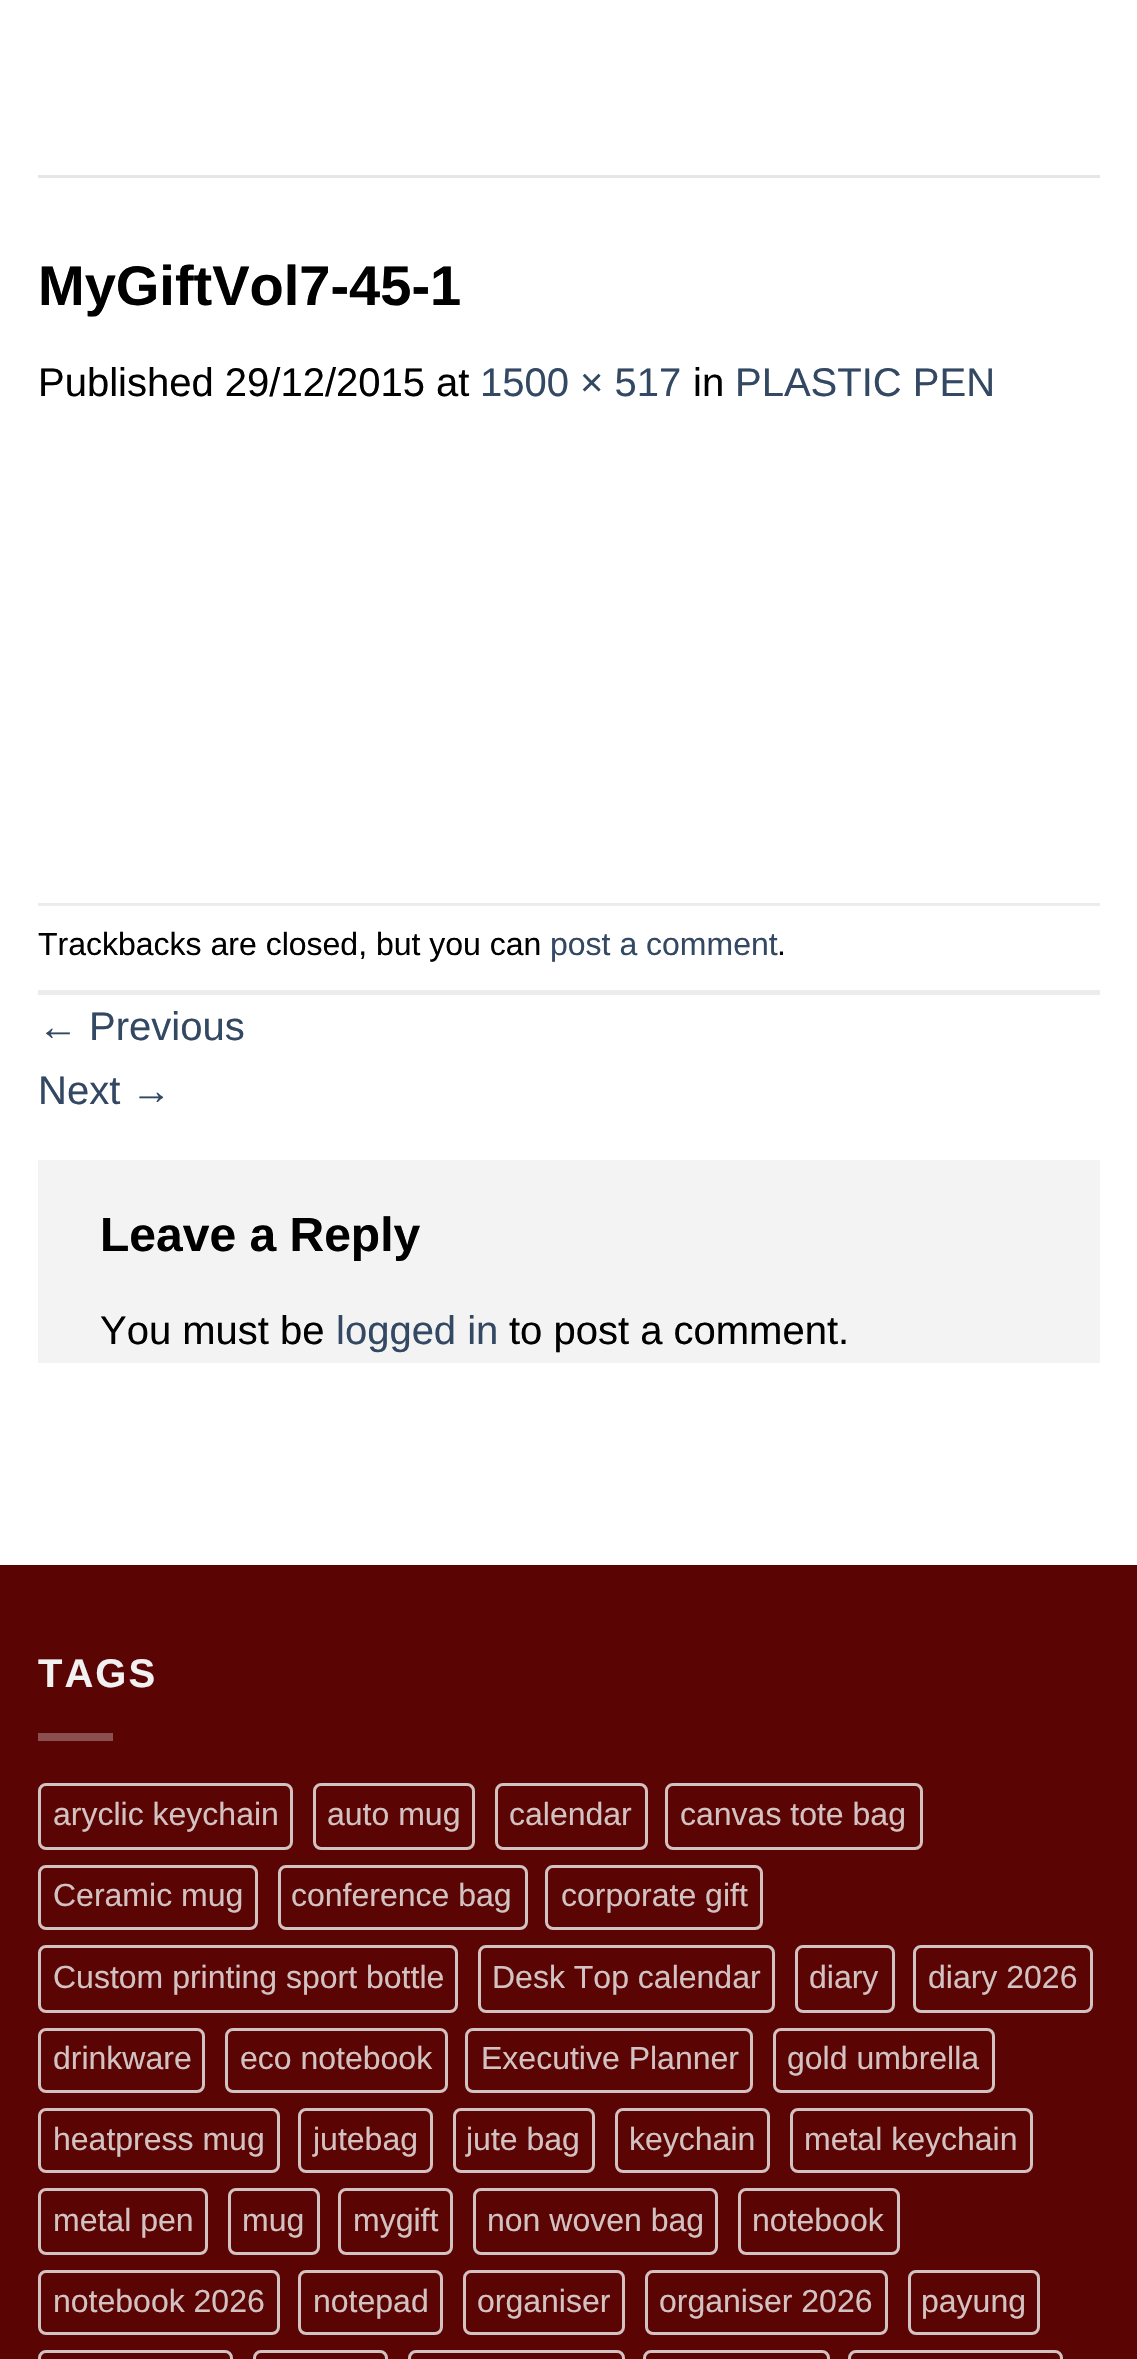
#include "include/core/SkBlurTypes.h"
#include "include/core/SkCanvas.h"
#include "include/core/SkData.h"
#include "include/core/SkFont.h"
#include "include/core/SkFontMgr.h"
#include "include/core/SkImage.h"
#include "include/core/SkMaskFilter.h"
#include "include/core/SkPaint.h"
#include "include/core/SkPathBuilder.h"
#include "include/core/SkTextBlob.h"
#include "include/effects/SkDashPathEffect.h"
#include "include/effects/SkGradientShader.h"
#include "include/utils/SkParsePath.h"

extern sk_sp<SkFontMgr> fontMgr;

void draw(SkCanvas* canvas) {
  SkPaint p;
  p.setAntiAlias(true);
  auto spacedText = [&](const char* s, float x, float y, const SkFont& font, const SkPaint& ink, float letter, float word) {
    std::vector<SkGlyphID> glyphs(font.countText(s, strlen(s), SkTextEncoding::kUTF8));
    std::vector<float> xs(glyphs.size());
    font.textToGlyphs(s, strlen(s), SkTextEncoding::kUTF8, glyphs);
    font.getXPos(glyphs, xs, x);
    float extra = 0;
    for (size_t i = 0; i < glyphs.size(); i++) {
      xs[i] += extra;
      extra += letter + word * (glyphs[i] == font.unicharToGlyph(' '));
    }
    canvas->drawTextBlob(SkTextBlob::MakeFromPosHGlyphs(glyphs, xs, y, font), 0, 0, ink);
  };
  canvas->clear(SK_ColorWHITE);
  p.setColor(SkColorSetRGB(230, 230, 230));
  canvas->drawRect(SkRect::MakeLTRB(38, 175, 1100, 178), p);
  p.setColor(SkColorSetRGB(236, 236, 236));
  canvas->drawRect(SkRect::MakeLTRB(38, 903, 1100, 906), p);
  canvas->drawRect(SkRect::MakeLTRB(38, 990, 1100, 995), p);
  p.setColor(SkColorSetRGB(243, 243, 243));
  canvas->drawRect(SkRect::MakeLTRB(38, 1160, 1100, 1363), p);
  p.setColor(SkColorSetRGB(91, 4, 4));
  canvas->drawRect(SkRect::MakeLTRB(0, 1568, 1137, 2359), p);
  p.setColor(SkColorSetRGB(86, 4, 4));
  canvas->drawRect(SkRect::MakeLTRB(0, 1565, 1137, 1568), p);
  p.setColor(SkColorSetRGB(140, 79, 79));
  canvas->drawRect(SkRect::MakeLTRB(38, 1733, 113, 1741), p);
  p.setStyle(SkPaint::kStroke_Style);
  p.setStrokeWidth(3);
  p.setColor(SkColorSetRGB(211, 194, 194));
  canvas->drawRoundRect(SkRect::MakeLTRB(39.5f, 1784.5f, 291.5f, 1848.5f), 6.5f, 6.5f, p);
  canvas->drawRoundRect(SkRect::MakeLTRB(314.5f, 1784.5f, 473.5f, 1848.5f), 6.5f, 6.5f, p);
  canvas->drawRoundRect(SkRect::MakeLTRB(496.5f, 1784.5f, 646.5f, 1848.5f), 6.5f, 6.5f, p);
  canvas->drawRoundRect(SkRect::MakeLTRB(666.5f, 1784.5f, 921.5f, 1848.5f), 6.5f, 6.5f, p);
  canvas->drawRoundRect(SkRect::MakeLTRB(39.5f, 1866.5f, 256.5f, 1928.5f), 6.5f, 6.5f, p);
  canvas->drawRoundRect(SkRect::MakeLTRB(279.5f, 1866.5f, 526.5f, 1928.5f), 6.5f, 6.5f, p);
  canvas->drawRoundRect(SkRect::MakeLTRB(546.5f, 1866.5f, 761.5f, 1928.5f), 6.5f, 6.5f, p);
  canvas->drawRoundRect(SkRect::MakeLTRB(39.5f, 1946.5f, 456.5f, 2011.5f), 6.5f, 6.5f, p);
  canvas->drawRoundRect(SkRect::MakeLTRB(479.5f, 1946.5f, 773.5f, 2011.5f), 6.5f, 6.5f, p);
  canvas->drawRoundRect(SkRect::MakeLTRB(796.5f, 1946.5f, 893.5f, 2011.5f), 6.5f, 6.5f, p);
  canvas->drawRoundRect(SkRect::MakeLTRB(914.5f, 1946.5f, 1091.5f, 2011.5f), 6.5f, 6.5f, p);
  canvas->drawRoundRect(SkRect::MakeLTRB(39.5f, 2029.5f, 203.5f, 2091.5f), 6.5f, 6.5f, p);
  canvas->drawRoundRect(SkRect::MakeLTRB(226.5f, 2029.5f, 446.5f, 2091.5f), 6.5f, 6.5f, p);
  canvas->drawRoundRect(SkRect::MakeLTRB(466.5f, 2029.5f, 751.5f, 2091.5f), 6.5f, 6.5f, p);
  canvas->drawRoundRect(SkRect::MakeLTRB(774.5f, 2029.5f, 993.5f, 2091.5f), 6.5f, 6.5f, p);
  canvas->drawRoundRect(SkRect::MakeLTRB(39.5f, 2109.5f, 278.5f, 2171.5f), 6.5f, 6.5f, p);
  canvas->drawRoundRect(SkRect::MakeLTRB(299.5f, 2109.5f, 431.5f, 2171.5f), 6.5f, 6.5f, p);
  canvas->drawRoundRect(SkRect::MakeLTRB(454.5f, 2109.5f, 593.5f, 2171.5f), 6.5f, 6.5f, p);
  canvas->drawRoundRect(SkRect::MakeLTRB(616.5f, 2109.5f, 768.5f, 2171.5f), 6.5f, 6.5f, p);
  canvas->drawRoundRect(SkRect::MakeLTRB(791.5f, 2109.5f, 1031.5f, 2171.5f), 6.5f, 6.5f, p);
  canvas->drawRoundRect(SkRect::MakeLTRB(39.5f, 2189.5f, 206.5f, 2253.5f), 6.5f, 6.5f, p);
  canvas->drawRoundRect(SkRect::MakeLTRB(229.5f, 2189.5f, 318.5f, 2253.5f), 6.5f, 6.5f, p);
  canvas->drawRoundRect(SkRect::MakeLTRB(339.5f, 2189.5f, 451.5f, 2253.5f), 6.5f, 6.5f, p);
  canvas->drawRoundRect(SkRect::MakeLTRB(474.5f, 2189.5f, 716.5f, 2253.5f), 6.5f, 6.5f, p);
  canvas->drawRoundRect(SkRect::MakeLTRB(739.5f, 2189.5f, 898.5f, 2253.5f), 6.5f, 6.5f, p);
  canvas->drawRoundRect(SkRect::MakeLTRB(39.5f, 2271.5f, 278.5f, 2333.5f), 6.5f, 6.5f, p);
  canvas->drawRoundRect(SkRect::MakeLTRB(299.5f, 2271.5f, 441.5f, 2333.5f), 6.5f, 6.5f, p);
  canvas->drawRoundRect(SkRect::MakeLTRB(464.5f, 2271.5f, 623.5f, 2333.5f), 6.5f, 6.5f, p);
  canvas->drawRoundRect(SkRect::MakeLTRB(646.5f, 2271.5f, 886.5f, 2333.5f), 6.5f, 6.5f, p);
  canvas->drawRoundRect(SkRect::MakeLTRB(909.5f, 2271.5f, 1038.5f, 2333.5f), 6.5f, 6.5f, p);
  canvas->drawRoundRect(SkRect::MakeLTRB(39.5f, 2351.5f, 231.5f, 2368.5f), 6.5f, 6.5f, p);
  canvas->drawRoundRect(SkRect::MakeLTRB(254.5f, 2351.5f, 386.5f, 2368.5f), 6.5f, 6.5f, p);
  canvas->drawRoundRect(SkRect::MakeLTRB(409.5f, 2351.5f, 623.5f, 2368.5f), 6.5f, 6.5f, p);
  canvas->drawRoundRect(SkRect::MakeLTRB(644.5f, 2351.5f, 828.5f, 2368.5f), 6.5f, 6.5f, p);
  canvas->drawRoundRect(SkRect::MakeLTRB(849.5f, 2351.5f, 1061.5f, 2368.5f), 6.5f, 6.5f, p);
  SkFont font1(fontMgr->matchFamilyStyle("Liberation Sans", SkFontStyle::Bold()), 56);
  font1.setSubpixel(true);
  p.setStyle(SkPaint::kFill_Style);
  p.setColor(SK_ColorBLACK);
  canvas->drawString("MyGiftVol7-45-1", 38, 305, font1, p);
  SkFont font2(fontMgr->matchFamilyStyle("Liberation Sans", SkFontStyle::Normal()), 40);
  font2.setSubpixel(true);
  canvas->drawString("Published 29/12/2015 at", 38, 396, font2, p);
  p.setColor(SkColorSetRGB(51, 72, 98));
  canvas->drawString("1500 × 517", 480, 396, font2, p);
  p.setColor(SK_ColorBLACK);
  canvas->drawString("in", 693, 396, font2, p);
  p.setColor(SkColorSetRGB(51, 72, 98));
  canvas->drawString("PLASTIC PEN", 735, 396, font2, p);
  SkFont font3(fontMgr->matchFamilyStyle("Liberation Sans", SkFontStyle::Normal()), 32);
  font3.setSubpixel(true);
  p.setColor(SK_ColorBLACK);
  canvas->drawString("Trackbacks are closed, but you can", 38, 955, font3, p);
  p.setColor(SkColorSetRGB(51, 72, 98));
  canvas->drawString("post a comment", 550, 955, font3, p);
  p.setColor(SK_ColorBLACK);
  canvas->drawString(".", 777, 955, font3, p);
  p.setColor(SkColorSetRGB(51, 72, 98));
  canvas->drawString("← Previous", 38, 1040, font2, p);
  canvas->drawString("Next →", 38, 1104, font2, p);
  SkFont font4(fontMgr->matchFamilyStyle("Liberation Sans", SkFontStyle::Bold()), 48);
  font4.setSubpixel(true);
  p.setColor(SK_ColorBLACK);
  canvas->drawString("Leave a Reply", 100, 1251, font4, p);
  canvas->drawString("You must be", 100, 1344, font2, p);
  p.setColor(SkColorSetRGB(51, 72, 98));
  canvas->drawString("logged in", 336, 1344, font2, p);
  p.setColor(SK_ColorBLACK);
  canvas->drawString("to post a comment.", 509, 1344, font2, p);
  SkFont font5(fontMgr->matchFamilyStyle("Liberation Sans", SkFontStyle::Bold()), 40);
  font5.setSubpixel(true);
  p.setColor(SkColorSetRGB(241, 241, 241));
  spacedText("TAGS", 38, 1687, font5, p, 2, 0);
  p.setColor(SkColorSetRGB(211, 194, 194));
  canvas->drawString("aryclic keychain", 53, 1825, font3, p);
  canvas->drawString("auto mug", 327, 1825, font3, p);
  canvas->drawString("calendar", 509, 1825, font3, p);
  canvas->drawString("canvas tote bag", 680, 1825, font3, p);
  canvas->drawString("Ceramic mug", 53, 1906, font3, p);
  canvas->drawString("conference bag", 291, 1906, font3, p);
  canvas->drawString("corporate gift", 561, 1906, font3, p);
  canvas->drawString("Custom printing sport bottle", 53, 1988, font3, p);
  canvas->drawString("Desk Top calendar", 492, 1988, font3, p);
  canvas->drawString("diary", 809, 1988, font3, p);
  canvas->drawString("diary 2026", 928, 1988, font3, p);
  canvas->drawString("drinkware", 53, 2069, font3, p);
  canvas->drawString("eco notebook", 240, 2069, font3, p);
  canvas->drawString("Executive Planner", 481, 2069, font3, p);
  canvas->drawString("gold umbrella", 787, 2069, font3, p);
  canvas->drawString("heatpress mug", 53, 2150, font3, p);
  canvas->drawString("jutebag", 313, 2150, font3, p);
  canvas->drawString("jute bag", 466, 2150, font3, p);
  canvas->drawString("keychain", 629, 2150, font3, p);
  canvas->drawString("metal keychain", 804, 2150, font3, p);
  canvas->drawString("metal pen", 53, 2231, font3, p);
  canvas->drawString("mug", 242, 2231, font3, p);
  canvas->drawString("mygift", 353, 2231, font3, p);
  canvas->drawString("non woven bag", 487, 2231, font3, p);
  canvas->drawString("notebook", 752, 2231, font3, p);
  canvas->drawString("notebook 2026", 53, 2312, font3, p);
  canvas->drawString("notepad", 313, 2312, font3, p);
  canvas->drawString("organiser", 477, 2312, font3, p);
  canvas->drawString("organiser 2026", 659, 2312, font3, p);
  canvas->drawString("payung", 921, 2312, font3, p);
}
